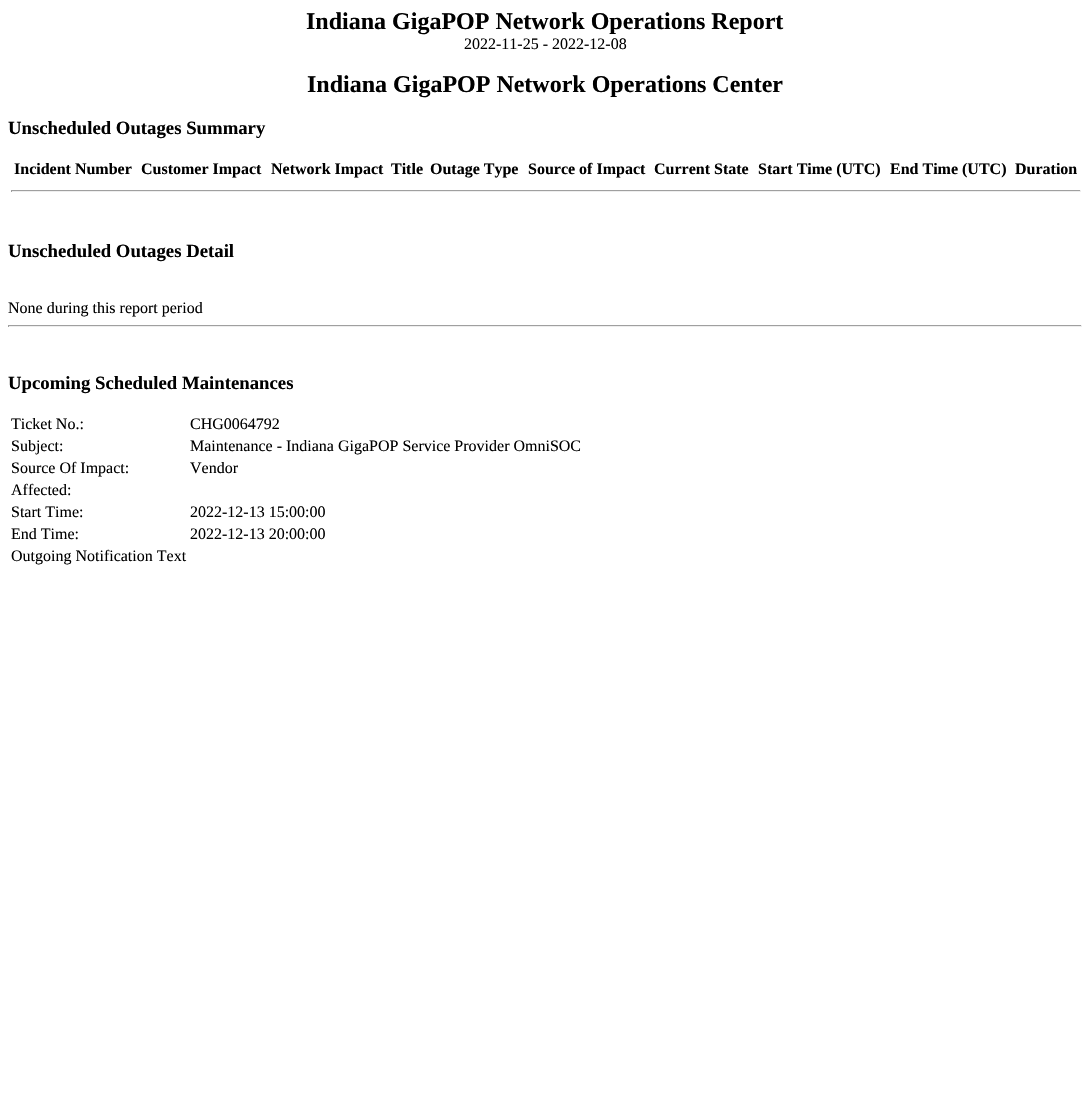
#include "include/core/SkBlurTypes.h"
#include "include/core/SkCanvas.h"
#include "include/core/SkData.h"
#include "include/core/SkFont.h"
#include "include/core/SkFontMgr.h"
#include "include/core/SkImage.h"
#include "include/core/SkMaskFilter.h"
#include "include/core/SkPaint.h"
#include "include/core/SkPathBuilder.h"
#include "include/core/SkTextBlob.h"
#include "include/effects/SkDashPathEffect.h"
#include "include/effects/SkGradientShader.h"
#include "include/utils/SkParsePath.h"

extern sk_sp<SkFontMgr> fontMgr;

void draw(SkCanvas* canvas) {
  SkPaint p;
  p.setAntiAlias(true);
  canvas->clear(SK_ColorWHITE);
  p.setColor(SkColorSetRGB(159, 159, 159));
  canvas->drawRect(SkRect::MakeLTRB(11, 190, 1081, 191), p);
  p.setColor(SkColorSetRGB(238, 238, 238));
  canvas->drawRect(SkRect::MakeLTRB(1080, 190, 1081, 192), p);
  canvas->drawRect(SkRect::MakeLTRB(11, 191, 1081, 192), p);
  p.setColor(SkColorSetRGB(159, 159, 159));
  canvas->drawRect(SkRect::MakeLTRB(11, 190, 12, 192), p);
  canvas->drawRect(SkRect::MakeLTRB(8, 325, 1082, 326), p);
  p.setColor(SkColorSetRGB(238, 238, 238));
  canvas->drawRect(SkRect::MakeLTRB(1081, 325, 1082, 327), p);
  canvas->drawRect(SkRect::MakeLTRB(8, 326, 1082, 327), p);
  p.setColor(SkColorSetRGB(159, 159, 159));
  canvas->drawRect(SkRect::MakeLTRB(8, 325, 9, 327), p);
  SkFont font1(fontMgr->matchFamilyStyle("Liberation Serif", SkFontStyle::Bold()), 24);
  font1.setSubpixel(true);
  p.setColor(SK_ColorBLACK);
  canvas->drawString("Indiana GigaPOP Network Operations Report", 306, 29, font1, p);
  SkFont font2(fontMgr->matchFamilyStyle("Liberation Serif", SkFontStyle::Normal()), 16);
  font2.setSubpixel(true);
  canvas->drawString("2022-11-25 - 2022-12-08", 464, 49, font2, p);
  canvas->drawString("Indiana GigaPOP Network Operations Center", 307, 92, font1, p);
  SkFont font3(fontMgr->matchFamilyStyle("Liberation Serif", SkFontStyle::Bold()), 18.75f);
  font3.setSubpixel(true);
  canvas->drawString("Unscheduled Outages Summary", 8, 134, font3, p);
  SkFont font4(fontMgr->matchFamilyStyle("Liberation Serif", SkFontStyle::Bold()), 16);
  font4.setSubpixel(true);
  canvas->drawString("Incident Number", 14, 174, font4, p);
  canvas->drawString("Customer Impact", 141, 174, font4, p);
  canvas->drawString("Network Impact", 271, 174, font4, p);
  canvas->drawString("Title", 391, 174, font4, p);
  canvas->drawString("Outage Type", 430, 174, font4, p);
  canvas->drawString("Source of Impact", 528, 174, font4, p);
  canvas->drawString("Current State", 654, 174, font4, p);
  canvas->drawString("Start Time (UTC)", 758, 174, font4, p);
  canvas->drawString("End Time (UTC)", 890, 174, font4, p);
  canvas->drawString("Duration", 1015, 174, font4, p);
  canvas->drawString("Unscheduled Outages Detail", 8, 257, font3, p);
  canvas->drawString("None during this report period", 8, 313, font2, p);
  canvas->drawString("Upcoming Scheduled Maintenances", 8, 389, font3, p);
  canvas->drawString("Ticket No.:", 11, 429, font2, p);
  canvas->drawString("CHG0064792", 190, 429, font2, p);
  canvas->drawString("Subject:", 11, 451, font2, p);
  canvas->drawString("Maintenance - Indiana GigaPOP Service Provider OmniSOC", 190, 451, font2, p);
  canvas->drawString("Source Of Impact:", 11, 473, font2, p);
  canvas->drawString("Vendor", 190, 473, font2, p);
  canvas->drawString("Affected:", 11, 495, font2, p);
  canvas->drawString("Start Time:", 11, 517, font2, p);
  canvas->drawString("2022-12-13 15:00:00", 190, 517, font2, p);
  canvas->drawString("End Time:", 11, 539, font2, p);
  canvas->drawString("2022-12-13 20:00:00", 190, 539, font2, p);
  canvas->drawString("Outgoing Notification Text", 11, 561, font2, p);
}
